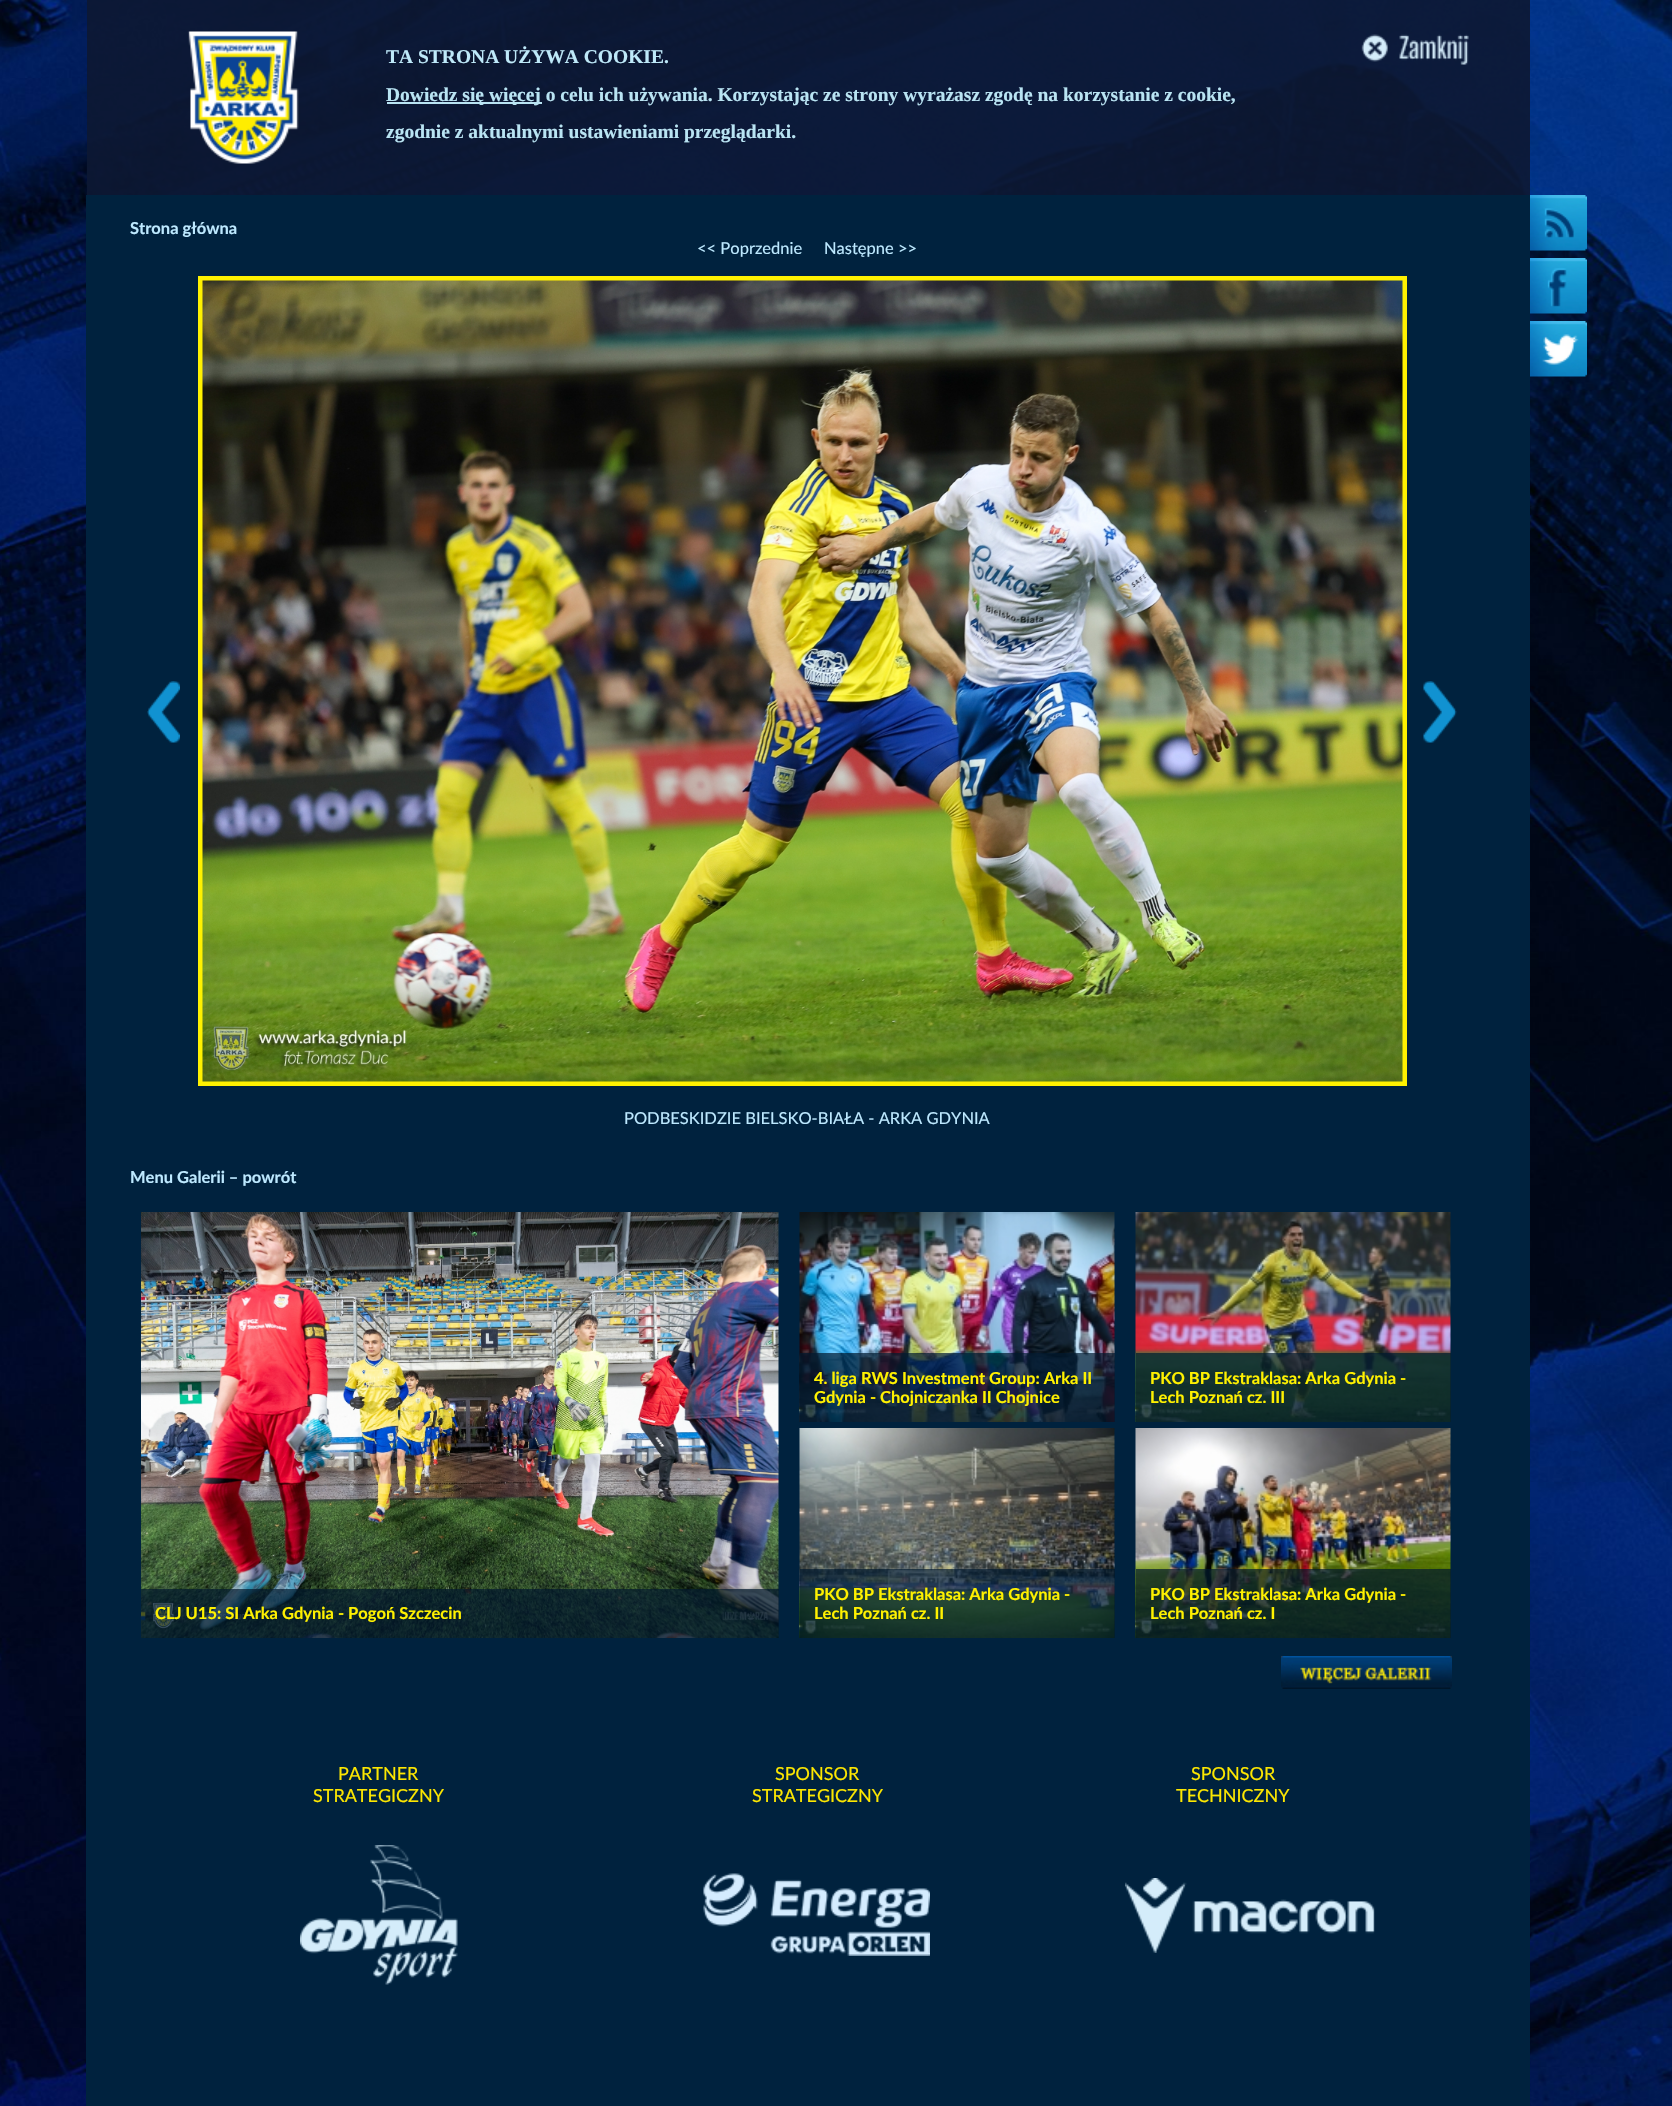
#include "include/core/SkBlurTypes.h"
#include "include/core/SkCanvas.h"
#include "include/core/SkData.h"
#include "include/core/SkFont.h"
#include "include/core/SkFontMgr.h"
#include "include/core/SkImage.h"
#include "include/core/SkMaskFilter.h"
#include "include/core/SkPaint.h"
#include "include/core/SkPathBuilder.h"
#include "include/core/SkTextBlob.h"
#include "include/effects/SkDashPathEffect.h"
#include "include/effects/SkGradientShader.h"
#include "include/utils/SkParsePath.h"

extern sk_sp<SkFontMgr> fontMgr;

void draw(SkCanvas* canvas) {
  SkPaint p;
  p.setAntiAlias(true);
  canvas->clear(SK_ColorWHITE);
  canvas->drawImageRect(SkImages::DeferredFromEncodedData(SkData::MakeFromFileName("images/1.png")), SkRect::MakeLTRB(0, 0, 1672, 2106), SkSamplingOptions());
  canvas->drawImageRect(SkImages::DeferredFromEncodedData(SkData::MakeFromFileName("images/2.png")), SkRect::MakeLTRB(87, 0, 1530, 195), SkSamplingOptions());
  p.setColor(SkColorSetRGB(185, 228, 243));
  canvas->drawRect(SkRect::MakeLTRB(387, 102, 542, 104), p);
  canvas->drawImageRect(SkImages::DeferredFromEncodedData(SkData::MakeFromFileName("images/3.png")), SkRect::MakeLTRB(1361, 34, 1469, 65), SkSamplingOptions());
  p.setColor(SkColorSetRGB(0, 34, 62));
  canvas->drawRect(SkRect::MakeLTRB(86, 195, 1530, 2106), p);
  canvas->drawImageRect(SkImages::DeferredFromEncodedData(SkData::MakeFromFileName("images/4.png")), SkRect::MakeLTRB(147, 681, 180, 743), SkSamplingOptions());
  p.setStyle(SkPaint::kStroke_Style);
  p.setStrokeWidth(5);
  p.setColor(SkColorSetRGB(255, 241, 0));
  canvas->drawRect(SkRect::MakeLTRB(200.5f, 278.5f, 1404.5f, 1083.5f), p);
  canvas->drawImageRect(SkImages::DeferredFromEncodedData(SkData::MakeFromFileName("images/5.png")), SkRect::MakeLTRB(202, 280, 1403, 1082), SkSamplingOptions());
  canvas->drawImageRect(SkImages::DeferredFromEncodedData(SkData::MakeFromFileName("images/6.png")), SkRect::MakeLTRB(1423, 681, 1457, 743), SkSamplingOptions());
  canvas->drawImageRect(SkImages::DeferredFromEncodedData(SkData::MakeFromFileName("images/7.png")), SkRect::MakeLTRB(1530, 195, 1587, 251), SkSamplingOptions());
  canvas->drawImageRect(SkImages::DeferredFromEncodedData(SkData::MakeFromFileName("images/8.png")), SkRect::MakeLTRB(1530, 258, 1587, 314), SkSamplingOptions());
  canvas->drawImageRect(SkImages::DeferredFromEncodedData(SkData::MakeFromFileName("images/9.png")), SkRect::MakeLTRB(1530, 321, 1587, 377), SkSamplingOptions());
  canvas->drawImageRect(SkImages::DeferredFromEncodedData(SkData::MakeFromFileName("images/10.png")), SkRect::MakeLTRB(799, 1212, 1115, 1422), SkSamplingOptions());
  p.setStyle(SkPaint::kFill_Style);
  p.setColor(SkColorSetARGB(179, 0, 24, 46));
  canvas->drawRect(SkRect::MakeLTRB(800, 1353, 1115, 1422), p);
  canvas->drawImageRect(SkImages::DeferredFromEncodedData(SkData::MakeFromFileName("images/11.png")), SkRect::MakeLTRB(1135, 1212, 1451, 1422), SkSamplingOptions());
  canvas->drawRect(SkRect::MakeLTRB(1136, 1353, 1451, 1422), p);
  canvas->drawImageRect(SkImages::DeferredFromEncodedData(SkData::MakeFromFileName("images/12.png")), SkRect::MakeLTRB(141, 1212, 779, 1638), SkSamplingOptions());
  canvas->drawRect(SkRect::MakeLTRB(141, 1589, 779, 1638), p);
  canvas->drawImageRect(SkImages::DeferredFromEncodedData(SkData::MakeFromFileName("images/13.png")), SkRect::MakeLTRB(799, 1428, 1115, 1638), SkSamplingOptions());
  canvas->drawRect(SkRect::MakeLTRB(800, 1569, 1115, 1638), p);
  canvas->drawImageRect(SkImages::DeferredFromEncodedData(SkData::MakeFromFileName("images/14.png")), SkRect::MakeLTRB(1135, 1428, 1451, 1638), SkSamplingOptions());
  canvas->drawRect(SkRect::MakeLTRB(1136, 1569, 1451, 1638), p);
  canvas->drawImageRect(SkImages::DeferredFromEncodedData(SkData::MakeFromFileName("images/15.png")), SkRect::MakeLTRB(1281, 1656, 1452, 1689), SkSamplingOptions());
  canvas->drawImageRect(SkImages::DeferredFromEncodedData(SkData::MakeFromFileName("images/16.png")), SkRect::MakeLTRB(300, 1845, 458, 1985), SkSamplingOptions());
  canvas->drawImageRect(SkImages::DeferredFromEncodedData(SkData::MakeFromFileName("images/17.png")), SkRect::MakeLTRB(703, 1873, 930, 1956), SkSamplingOptions());
  canvas->drawImageRect(SkImages::DeferredFromEncodedData(SkData::MakeFromFileName("images/18.png")), SkRect::MakeLTRB(1125, 1878, 1375, 1953), SkSamplingOptions());
  SkFont font1(fontMgr->matchFamilyStyle("Liberation Serif", SkFontStyle::Bold()), 19.5f);
  font1.setSubpixel(true);
  p.setColor(SkColorSetRGB(190, 233, 249));
  canvas->drawString("TA STRONA UŻYWA COOKIE.", 386, 63, font1, p);
  p.setColor(SkColorSetRGB(185, 228, 243));
  canvas->drawString("Dowiedz się więcej o celu ich używania. Korzystając ze strony wyrażasz zgodę na korzystanie z cookie,", 386, 101, font1, p);
  canvas->drawString("zgodnie z aktualnymi ustawieniami przeglądarki.", 386, 138, font1, p);
  SkFont font2(fontMgr->matchFamilyStyle("Lato", SkFontStyle::Bold()), 16.5f);
  font2.setSubpixel(true);
  p.setColor(SkColorSetRGB(189, 233, 255));
  canvas->drawString("Strona główna", 130, 234, font2, p);
  SkFont font3(fontMgr->matchFamilyStyle("Lato", SkFontStyle::Normal()), 16.5f);
  font3.setSubpixel(true);
  canvas->drawString("<< Poprzednie", 697, 254, font3, p);
  canvas->drawString("Następne >>", 824, 254, font3, p);
  canvas->drawString("PODBESKIDZIE BIELSKO-BIAŁA - ARKA GDYNIA", 624, 1124, font3, p);
  canvas->drawString("Menu Galerii – powrót", 130, 1183, font2, p);
  p.setColor(SkColorSetRGB(255, 241, 0));
  canvas->drawString("4. liga RWS Investment Group: Arka II", 814, 1384, font2, p);
  canvas->drawString("Gdynia - Chojniczanka II Chojnice", 814, 1403, font2, p);
  canvas->drawString("PKO BP Ekstraklasa: Arka Gdynia -", 1150, 1384, font2, p);
  canvas->drawString("Lech Poznań cz. III", 1150, 1403, font2, p);
  canvas->drawString("CLJ U15: SI Arka Gdynia - Pogoń Szczecin", 155, 1619, font2, p);
  canvas->drawString("PKO BP Ekstraklasa: Arka Gdynia -", 814, 1600, font2, p);
  canvas->drawString("Lech Poznań cz. II", 814, 1619, font2, p);
  canvas->drawString("PKO BP Ekstraklasa: Arka Gdynia -", 1150, 1600, font2, p);
  canvas->drawString("Lech Poznań cz. I", 1150, 1619, font2, p);
  SkFont font4(fontMgr->matchFamilyStyle("Lato", SkFontStyle::Normal()), 18);
  font4.setSubpixel(true);
  p.setColor(SkColorSetRGB(253, 231, 0));
  canvas->drawString("PARTNER", 338, 1780, font4, p);
  canvas->drawString("STRATEGICZNY", 313, 1802, font4, p);
  canvas->drawString("SPONSOR", 775, 1780, font4, p);
  canvas->drawString("STRATEGICZNY", 752, 1802, font4, p);
  canvas->drawString("SPONSOR", 1191, 1780, font4, p);
  canvas->drawString("TECHNICZNY", 1176, 1802, font4, p);
}
